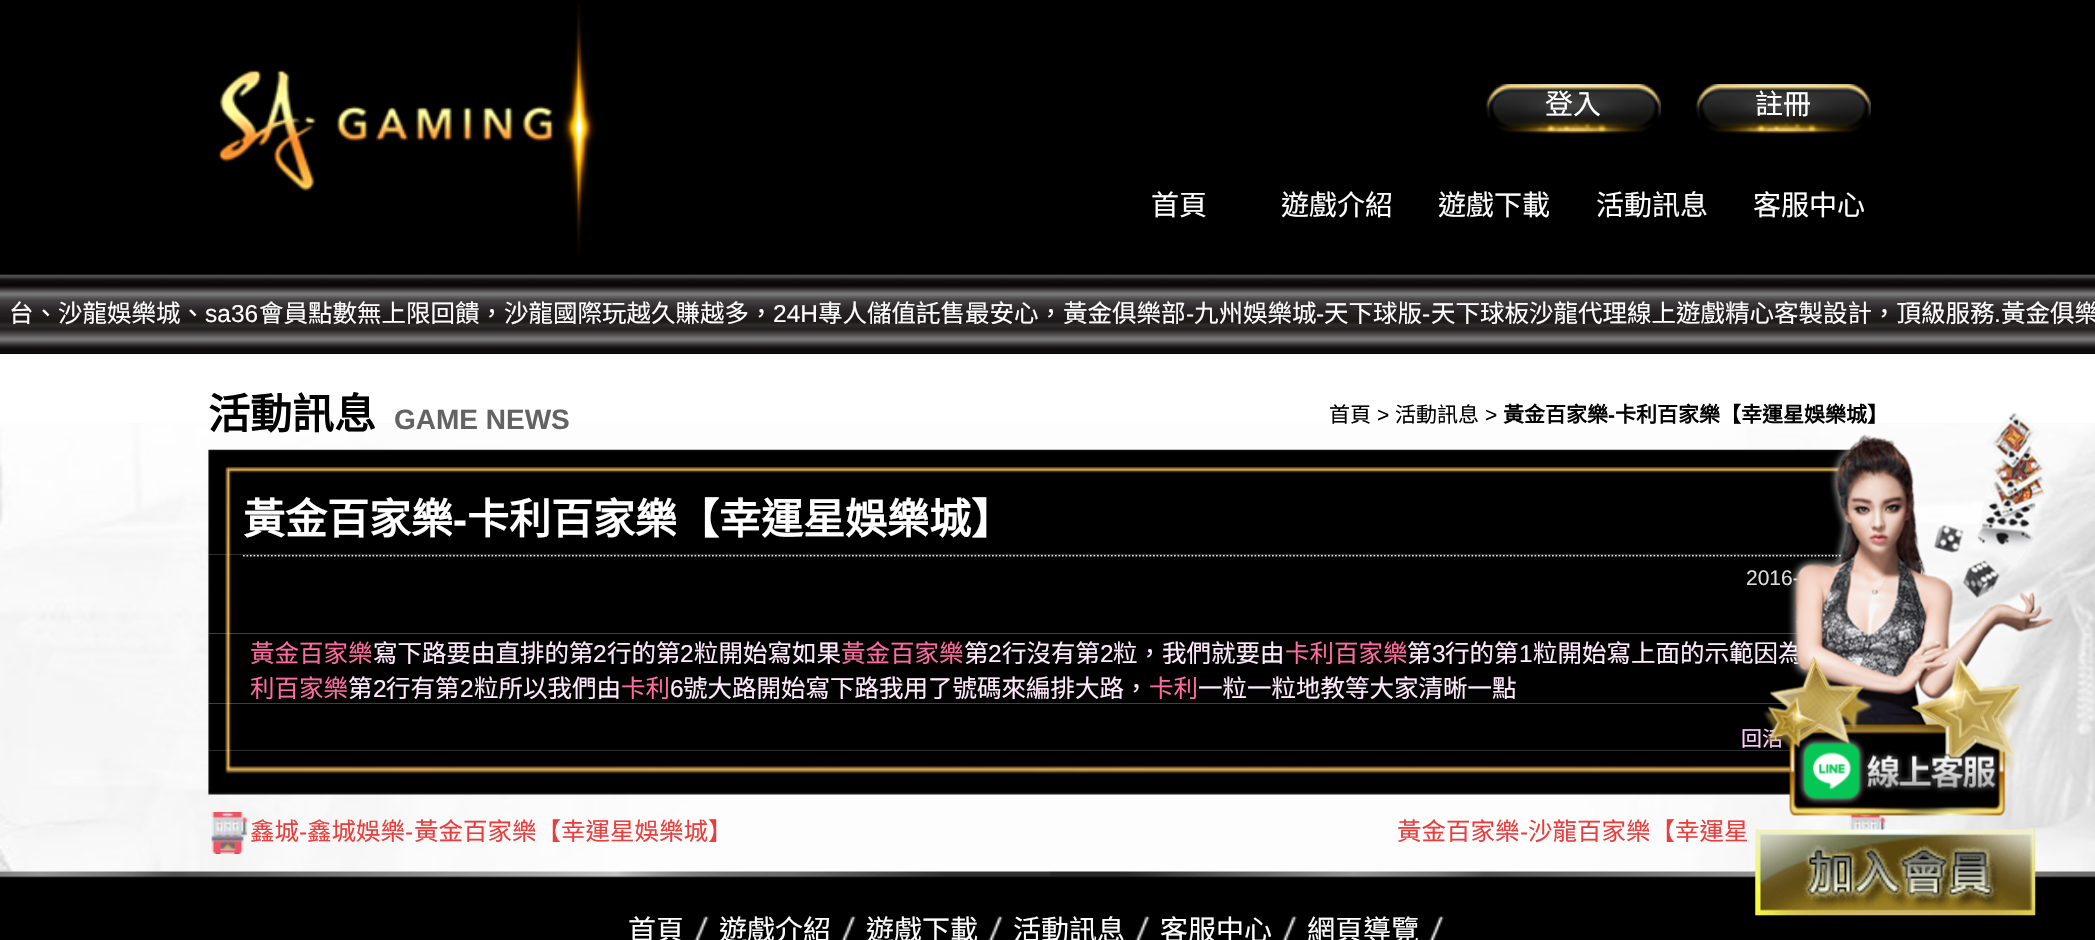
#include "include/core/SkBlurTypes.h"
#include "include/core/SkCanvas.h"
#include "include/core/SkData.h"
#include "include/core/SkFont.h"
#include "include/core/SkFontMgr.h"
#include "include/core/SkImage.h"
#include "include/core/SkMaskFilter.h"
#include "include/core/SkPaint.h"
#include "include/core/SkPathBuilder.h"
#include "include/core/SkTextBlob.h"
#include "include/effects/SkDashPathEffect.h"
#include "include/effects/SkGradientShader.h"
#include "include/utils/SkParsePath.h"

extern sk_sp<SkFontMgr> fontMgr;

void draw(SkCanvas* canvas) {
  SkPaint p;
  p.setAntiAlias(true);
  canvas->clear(SK_ColorWHITE);
  p.setColor(SK_ColorBLACK);
  canvas->drawRect(SkRect::MakeLTRB(0, 0, 2095, 354), p);
  canvas->drawImageRect(SkImages::DeferredFromEncodedData(SkData::MakeFromFileName("images/1.png")), SkRect::MakeLTRB(0, 274, 2095, 354), SkSamplingOptions());
  canvas->drawImageRect(SkImages::DeferredFromEncodedData(SkData::MakeFromFileName("images/2.png")), SkRect::MakeLTRB(218, 2, 597, 255), SkSamplingOptions());
  canvas->drawImageRect(SkImages::DeferredFromEncodedData(SkData::MakeFromFileName("images/3.png")), SkRect::MakeLTRB(1485, 84, 1661, 134), SkSamplingOptions());
  canvas->drawImageRect(SkImages::DeferredFromEncodedData(SkData::MakeFromFileName("images/3.png")), SkRect::MakeLTRB(1695, 84, 1871, 134), SkSamplingOptions());
  canvas->drawImageRect(SkImages::DeferredFromEncodedData(SkData::MakeFromFileName("images/4.png")), SkRect::MakeLTRB(0, 423, 2095, 872), SkSamplingOptions());
  canvas->drawImageRect(SkImages::DeferredFromEncodedData(SkData::MakeFromFileName("images/5.png")), SkRect::MakeLTRB(208, 449, 1855, 555), SkSamplingOptions());
  canvas->drawImageRect(SkImages::DeferredFromEncodedData(SkData::MakeFromFileName("images/6.png")), SkRect::MakeLTRB(208, 554, 1845, 634), SkSamplingOptions());
  canvas->save();
  canvas->clipRect(SkRect::MakeLTRB(208, 555, 1888, 634));
  p.setStyle(SkPaint::kStroke_Style);
  p.setStrokeWidth(1.8f);
  p.setColor(SkColorSetRGB(221, 221, 221));
  p.setPathEffect(SkDashPathEffect::Make({{1.75f, 1.75f}}, 0));
  canvas->drawPath(SkPathBuilder().moveTo(243, 555.5f).lineTo(1853, 555.5f).detach(), p);
  p.setPathEffect(nullptr);
  canvas->restore();
  canvas->drawImageRect(SkImages::DeferredFromEncodedData(SkData::MakeFromFileName("images/7.png")), SkRect::MakeLTRB(208, 633, 1810, 704), SkSamplingOptions());
  canvas->drawImageRect(SkImages::DeferredFromEncodedData(SkData::MakeFromFileName("images/9.png")), SkRect::MakeLTRB(208, 750, 1791, 795), SkSamplingOptions());
  canvas->drawImageRect(SkImages::DeferredFromEncodedData(SkData::MakeFromFileName("images/8.png")), SkRect::MakeLTRB(208, 703, 1792, 751), SkSamplingOptions());
  canvas->drawImageRect(SkImages::DeferredFromEncodedData(SkData::MakeFromFileName("images/10.png")), SkRect::MakeLTRB(211, 812, 248, 854), SkSamplingOptions());
  canvas->drawImageRect(SkImages::DeferredFromEncodedData(SkData::MakeFromFileName("images/11.png")), SkRect::MakeLTRB(1849, 814, 1886, 830), SkSamplingOptions());
  p.setStyle(SkPaint::kFill_Style);
  p.setColor(SK_ColorBLACK);
  canvas->drawRect(SkRect::MakeLTRB(0, 878, 2095, 940), p);
  canvas->drawImageRect(SkImages::DeferredFromEncodedData(SkData::MakeFromFileName("images/14.png")), SkRect::MakeLTRB(0, 871, 2095, 878), SkSamplingOptions());
  canvas->drawImageRect(SkImages::DeferredFromEncodedData(SkData::MakeFromFileName("images/13.png")), SkRect::MakeLTRB(1755, 829, 2036, 916), SkSamplingOptions());
  canvas->drawImageRect(SkImages::DeferredFromEncodedData(SkData::MakeFromFileName("images/15.png")), SkRect::MakeLTRB(694, 916, 709, 940), SkSamplingOptions());
  canvas->drawImageRect(SkImages::DeferredFromEncodedData(SkData::MakeFromFileName("images/15.png")), SkRect::MakeLTRB(841, 916, 856, 940), SkSamplingOptions());
  canvas->drawImageRect(SkImages::DeferredFromEncodedData(SkData::MakeFromFileName("images/15.png")), SkRect::MakeLTRB(988, 916, 1003, 940), SkSamplingOptions());
  canvas->drawImageRect(SkImages::DeferredFromEncodedData(SkData::MakeFromFileName("images/15.png")), SkRect::MakeLTRB(1135, 916, 1150, 940), SkSamplingOptions());
  canvas->drawImageRect(SkImages::DeferredFromEncodedData(SkData::MakeFromFileName("images/15.png")), SkRect::MakeLTRB(1282, 916, 1297, 940), SkSamplingOptions());
  canvas->drawImageRect(SkImages::DeferredFromEncodedData(SkData::MakeFromFileName("images/15.png")), SkRect::MakeLTRB(1429, 916, 1444, 940), SkSamplingOptions());
  SkFont font1(fontMgr->matchFamilyStyle("Noto Sans CJK TC", SkFontStyle::Normal()), 28);
  font1.setSubpixel(true);
  p.setColor(SK_ColorWHITE);
  canvas->drawString("登入", 1545, 114, font1, p);
  canvas->drawString("註冊", 1755, 114, font1, p);
  canvas->drawString("首頁", 1151, 215, font1, p);
  canvas->drawString("遊戲介紹", 1281, 215, font1, p);
  canvas->drawString("遊戲下載", 1438, 215, font1, p);
  canvas->drawString("活動訊息", 1596, 215, font1, p);
  canvas->drawString("客服中心", 1753, 215, font1, p);
  SkFont font2(fontMgr->matchFamilyStyle("Noto Sans CJK TC", SkFontStyle::Normal()), 24.5f);
  font2.setSubpixel(true);
  canvas->drawString("台、沙龍娛樂城、", 9, 322, font2, p);
  SkFont font3(fontMgr->matchFamilyStyle("Liberation Sans", SkFontStyle::Normal()), 24.5f);
  font3.setSubpixel(true);
  canvas->drawString("sa36", 205, 322, font3, p);
  canvas->drawString("會員點數無上限回饋，沙龍國際玩越久賺越多，", 259, 322, font2, p);
  canvas->drawString("24H", 773, 322, font3, p);
  canvas->drawString("專人儲值託售最安心，黃金俱樂部", 818, 322, font2, p);
  canvas->drawString("-", 1186, 322, font3, p);
  canvas->drawString("九州娛樂城", 1194, 322, font2, p);
  canvas->drawString("-", 1316, 322, font3, p);
  canvas->drawString("天下球版", 1324, 322, font2, p);
  canvas->drawString("-", 1422, 322, font3, p);
  canvas->drawString("天下球板沙龍代理線上遊戲精心客製設計，頂級服務", 1431, 322, font2, p);
  canvas->drawString("黃金俱樂", 2001, 322, font2, p);
  canvas->drawString(".", 1994, 322, font3, p);
  SkFont font4(fontMgr->matchFamilyStyle("Noto Sans CJK TC", SkFontStyle::Bold()), 42);
  font4.setSubpixel(true);
  p.setColor(SK_ColorBLACK);
  canvas->drawString("活動訊息", 208, 429, font4, p);
  SkFont font5(fontMgr->matchFamilyStyle("Liberation Sans", SkFontStyle::Bold()), 28);
  font5.setSubpixel(true);
  p.setColor(SkColorSetRGB(99, 99, 99));
  canvas->drawString("GAME NEWS", 394, 429, font5, p);
  SkFont font6(fontMgr->matchFamilyStyle("Noto Sans CJK TC", SkFontStyle::Normal()), 21);
  font6.setSubpixel(true);
  p.setColor(SK_ColorBLACK);
  canvas->drawString("首頁", 1329, 422, font6, p);
  SkFont font7(fontMgr->matchFamilyStyle("Liberation Sans", SkFontStyle::Normal()), 21);
  font7.setSubpixel(true);
  canvas->drawString(">", 1377, 422, font7, p);
  canvas->drawString("活動訊息", 1395, 422, font6, p);
  canvas->drawString(">", 1485, 422, font7, p);
  SkFont font8(fontMgr->matchFamilyStyle("Noto Sans CJK TC", SkFontStyle::Bold()), 21);
  font8.setSubpixel(true);
  canvas->drawString("黃金百家樂", 1503, 422, font8, p);
  SkFont font9(fontMgr->matchFamilyStyle("Liberation Sans", SkFontStyle::Bold()), 21);
  font9.setSubpixel(true);
  canvas->drawString("-", 1608, 422, font9, p);
  canvas->drawString("卡利百家樂【幸運星娛樂城】", 1615, 422, font8, p);
  p.setColor(SK_ColorWHITE);
  canvas->drawString("黃金百家樂", 243, 534, font4, p);
  SkFont font10(fontMgr->matchFamilyStyle("Liberation Sans", SkFontStyle::Bold()), 42);
  font10.setSubpixel(true);
  canvas->drawString("-", 453, 534, font10, p);
  canvas->drawString("卡利百家樂【幸運星娛樂城】", 467, 534, font4, p);
  p.setColor(SkColorSetRGB(221, 221, 221));
  canvas->drawString("2016-", 1746, 585, font7, p);
  p.setColor(SkColorSetRGB(255, 107, 160));
  canvas->drawString("黃金百家樂", 250, 662, font2, p);
  p.setColor(SkColorSetRGB(255, 234, 254));
  canvas->drawString("寫下路要由直排的第", 373, 662, font2, p);
  canvas->drawString("2", 593, 662, font3, p);
  canvas->drawString("行的第", 607, 662, font2, p);
  canvas->drawString("2", 680, 662, font3, p);
  canvas->drawString("粒開始寫如果", 694, 662, font2, p);
  p.setColor(SkColorSetRGB(255, 107, 160));
  canvas->drawString("黃金百家樂", 841, 662, font2, p);
  p.setColor(SkColorSetRGB(255, 234, 254));
  canvas->drawString("第", 964, 662, font2, p);
  canvas->drawString("2", 988, 662, font3, p);
  canvas->drawString("行沒有第", 1002, 662, font2, p);
  canvas->drawString("2", 1100, 662, font3, p);
  canvas->drawString("粒，我們就要由", 1113, 662, font2, p);
  p.setColor(SkColorSetRGB(255, 107, 160));
  canvas->drawString("卡利百家樂", 1285, 662, font2, p);
  p.setColor(SkColorSetRGB(255, 234, 254));
  canvas->drawString("第", 1407, 662, font2, p);
  canvas->drawString("3", 1432, 662, font3, p);
  canvas->drawString("行的第", 1445, 662, font2, p);
  canvas->drawString("1", 1519, 662, font3, p);
  canvas->drawString("粒開始寫上面的示範因為", 1533, 662, font2, p);
  p.setColor(SkColorSetRGB(255, 107, 160));
  canvas->drawString("利百家樂", 250, 697, font2, p);
  p.setColor(SkColorSetRGB(255, 234, 254));
  canvas->drawString("第", 348, 697, font2, p);
  canvas->drawString("2", 373, 697, font3, p);
  canvas->drawString("行有第", 386, 697, font2, p);
  canvas->drawString("2", 460, 697, font3, p);
  canvas->drawString("粒所以我們由", 474, 697, font2, p);
  p.setColor(SkColorSetRGB(255, 107, 160));
  canvas->drawString("卡利", 621, 697, font2, p);
  p.setColor(SkColorSetRGB(255, 234, 254));
  canvas->drawString("6", 670, 697, font3, p);
  canvas->drawString("號大路開始寫下路我用了號碼來編排大路，", 683, 697, font2, p);
  p.setColor(SkColorSetRGB(255, 107, 160));
  canvas->drawString("卡利", 1149, 697, font2, p);
  p.setColor(SkColorSetRGB(255, 234, 254));
  canvas->drawString("一粒一粒地教等大家清晰一點", 1198, 697, font2, p);
  p.setColor(SkColorSetRGB(255, 204, 255));
  canvas->drawString("回活", 1741, 746, font6, p);
  p.setColor(SkColorSetRGB(236, 61, 61));
  canvas->drawString("鑫城", 250, 840, font2, p);
  canvas->drawString("-", 299, 840, font3, p);
  canvas->drawString("鑫城娛樂", 307, 840, font2, p);
  canvas->drawString("-", 405, 840, font3, p);
  canvas->drawString("黃金百家樂【幸運星娛樂城】", 414, 840, font2, p);
  canvas->drawString("黃金百家樂", 1397, 840, font2, p);
  canvas->drawString("-", 1520, 840, font3, p);
  canvas->drawString("沙龍百家樂【幸運星", 1528, 840, font2, p);
  canvas->drawImageRect(SkImages::DeferredFromEncodedData(SkData::MakeFromFileName("images/12.png")), SkRect::MakeLTRB(1763, 412, 2053, 818), SkSamplingOptions());
  p.setColor(SK_ColorWHITE);
  canvas->drawString("首頁", 628, 940, font1, p);
  canvas->drawString("遊戲介紹", 719, 940, font1, p);
  canvas->drawString("遊戲下載", 866, 940, font1, p);
  canvas->drawString("活動訊息", 1013, 940, font1, p);
  canvas->drawString("客服中心", 1160, 940, font1, p);
  canvas->drawString("網頁導覽", 1307, 940, font1, p);
}
